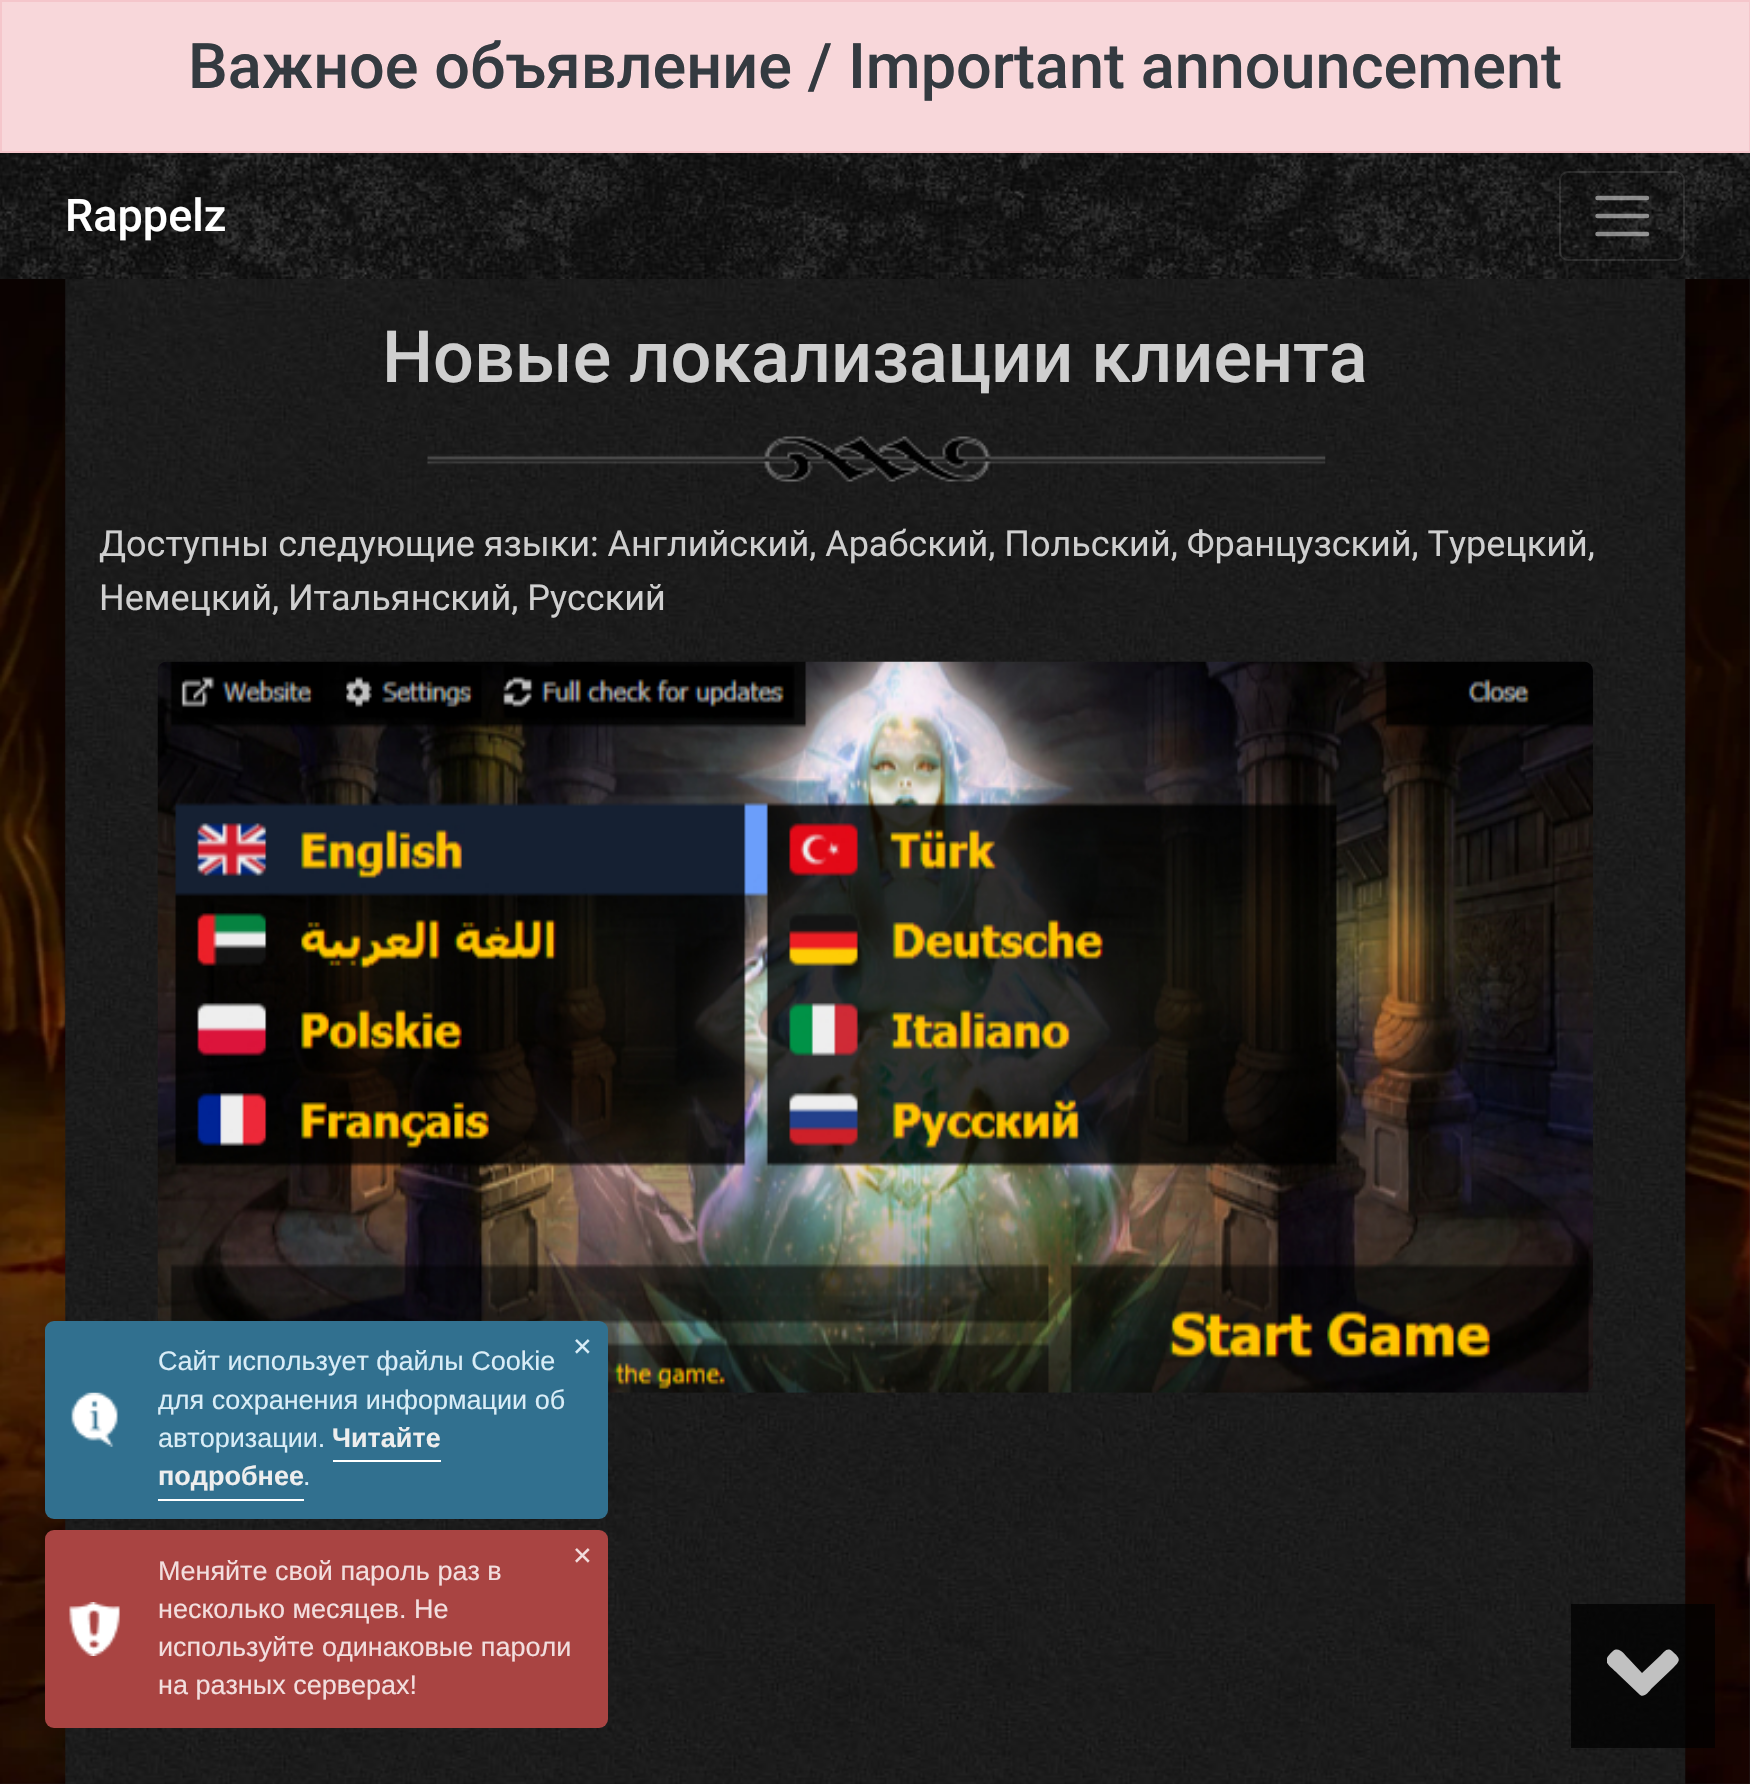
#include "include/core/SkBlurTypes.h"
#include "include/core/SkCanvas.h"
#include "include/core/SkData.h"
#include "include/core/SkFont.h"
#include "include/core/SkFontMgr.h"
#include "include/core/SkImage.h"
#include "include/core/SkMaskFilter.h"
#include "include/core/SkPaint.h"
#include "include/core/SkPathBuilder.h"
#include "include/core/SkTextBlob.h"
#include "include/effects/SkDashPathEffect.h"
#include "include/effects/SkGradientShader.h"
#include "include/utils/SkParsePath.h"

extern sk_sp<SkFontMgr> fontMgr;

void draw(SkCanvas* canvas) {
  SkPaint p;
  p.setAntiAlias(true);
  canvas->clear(SkColorSetRGB(52, 58, 64));
  p.setColor(SkColorSetRGB(248, 215, 218));
  canvas->drawRect(SkRect::MakeLTRB(1, 1, 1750, 152), p);
  p.setStyle(SkPaint::kStroke_Style);
  p.setStrokeWidth(2);
  p.setColor(SkColorSetRGB(245, 198, 203));
  canvas->drawRect(SkRect::MakeLTRB(1, 1, 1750, 152), p);
  canvas->drawImageRect(SkImages::DeferredFromEncodedData(SkData::MakeFromFileName("images/2.png")), SkRect::MakeLTRB(0, 279, 1750, 1784), SkSamplingOptions());
  p.setStyle(SkPaint::kFill_Style);
  p.setColor(SkColorSetARGB(38, 0, 0, 0));
  p.setMaskFilter(SkMaskFilter::MakeBlur(kNormal_SkBlurStyle, 18));
  canvas->drawRect(SkRect::MakeLTRB(65, 297, 1685, 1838), p);
  p.setMaskFilter(nullptr);
  canvas->drawImageRect(SkImages::DeferredFromEncodedData(SkData::MakeFromFileName("images/1.png")), SkRect::MakeLTRB(0, 153, 1750, 279), SkSamplingOptions());
  p.setStyle(SkPaint::kStroke_Style);
  p.setColor(SkColorSetARGB(26, 255, 255, 255));
  canvas->drawRoundRect(SkRect::MakeLTRB(1560, 172, 1684, 260), 8, 8, p);
  p.setStrokeWidth(4.5f);
  p.setStrokeCap(SkPaint::kRound_Cap);
  p.setColor(SkColorSetARGB(128, 255, 255, 255));
  canvas->drawPath(SkPathBuilder().moveTo(1597.5f, 198).lineTo(1647, 198).moveTo(1597.5f, 216).lineTo(1647, 216).moveTo(1597.5f, 234).lineTo(1647, 234).detach(), p);
  canvas->drawImageRect(SkImages::DeferredFromEncodedData(SkData::MakeFromFileName("images/3.png")), SkRect::MakeLTRB(65, 279, 1686, 1784), SkSamplingOptions());
  canvas->drawImageRect(SkImages::DeferredFromEncodedData(SkData::MakeFromFileName("images/4.png")), SkRect::MakeLTRB(427, 436, 1326, 482), SkSamplingOptions());
  canvas->drawImageRect(SkImages::DeferredFromEncodedData(SkData::MakeFromFileName("images/5.png")), SkRect::MakeLTRB(157, 661, 1593, 1393), SkSamplingOptions());
  p.setStyle(SkPaint::kFill_Style);
  p.setColor(SkColorSetRGB(49, 112, 143));
  canvas->drawRoundRect(SkRect::MakeLTRB(45, 1321, 608, 1519), 9, 9, p);
  canvas->drawImageRect(SkImages::DeferredFromEncodedData(SkData::MakeFromFileName("images/6.png")), SkRect::MakeLTRB(71, 1392, 118, 1447), SkSamplingOptions());
  p.setColor(SK_ColorWHITE);
  canvas->drawRect(SkRect::MakeLTRB(333, 1460, 441, 1462), p);
  canvas->drawRect(SkRect::MakeLTRB(158, 1499, 304, 1501), p);
  p.setColor(SkColorSetRGB(169, 68, 66));
  canvas->drawRoundRect(SkRect::MakeLTRB(45, 1530, 608, 1728), 9, 9, p);
  canvas->drawImageRect(SkImages::DeferredFromEncodedData(SkData::MakeFromFileName("images/7.png")), SkRect::MakeLTRB(69, 1602, 120, 1656), SkSamplingOptions());
  p.setColor(SkColorSetARGB(191, 0, 0, 0));
  canvas->drawRect(SkRect::MakeLTRB(1571, 1604, 1715, 1748), p);
  canvas->save();
  canvas->clipRect(SkRect::MakeLTRB(1607, 1640, 1679, 1730));
  p.setColor(SkColorSetARGB(191, 255, 255, 255));
  canvas->drawPath(SkPathBuilder().moveTo(1639, 1694).lineTo(1618, 1674).cubicTo(1607, 1663, 1601, 1662, 1613, 1651).cubicTo(1619, 1646, 1625, 1655, 1628, 1658).lineTo(1642, 1673).lineTo(1661, 1655).cubicTo(1664, 1652, 1667, 1647, 1672, 1651).cubicTo(1681, 1659, 1681, 1660, 1672, 1669).lineTo(1651, 1689).cubicTo(1649, 1692, 1643, 1699, 1639, 1694).close().detach(), p);
  canvas->restore();
  SkFont font1(fontMgr->matchFamilyStyle("Roboto", SkFontStyle(500, SkFontStyle::kNormal_Width, SkFontStyle::kUpright_Slant)), 63);
  font1.setSubpixel(true);
  p.setColor(SkColorSetRGB(52, 58, 64));
  canvas->drawString("Важное объявление / Important announcement", 188, 88, font1, p);
  SkFont font2(fontMgr->matchFamilyStyle("Roboto", SkFontStyle(500, SkFontStyle::kNormal_Width, SkFontStyle::kUpright_Slant)), 45);
  font2.setSubpixel(true);
  p.setColor(SK_ColorWHITE);
  canvas->drawString("Rappelz", 65, 231, font2, p);
  SkFont font3(fontMgr->matchFamilyStyle("Roboto", SkFontStyle(500, SkFontStyle::kNormal_Width, SkFontStyle::kUpright_Slant)), 72);
  font3.setSubpixel(true);
  p.setColor(SkColorSetRGB(207, 207, 207));
  canvas->drawString("Новые локализации клиента", 382, 382, font3, p);
  SkFont font4(fontMgr->matchFamilyStyle("Roboto", SkFontStyle::Normal()), 36);
  font4.setSubpixel(true);
  canvas->drawString("Доступны следующие языки: Английский, Арабский, Польский, Французский, Турецкий,", 99, 556, font4, p);
  canvas->drawString("Немецкий, Итальянский, Русский", 99, 610, font4, p);
  SkFont font5(fontMgr->matchFamilyStyle("Liberation Sans", SkFontStyle::Normal()), 32);
  font5.setSubpixel(true);
  p.setColor(SkColorSetRGB(217, 237, 247));
  canvas->drawString("×", 573, 1357, font5, p);
  SkFont font6(fontMgr->matchFamilyStyle("Liberation Sans", SkFontStyle::Normal()), 27);
  font6.setSubpixel(true);
  canvas->drawString("Сайт использует файлы Cookie", 158, 1370, font6, p);
  canvas->drawString("для сохранения информации об", 158, 1409, font6, p);
  canvas->drawString("авторизации.", 158, 1447, font6, p);
  SkFont font7(fontMgr->matchFamilyStyle("Liberation Sans", SkFontStyle::Bold()), 27);
  font7.setSubpixel(true);
  p.setColor(SkColorSetRGB(238, 238, 238));
  canvas->drawString("Читайте", 332, 1447, font7, p);
  canvas->drawString("подробнее", 158, 1485, font7, p);
  p.setColor(SkColorSetRGB(217, 237, 247));
  canvas->drawString(".", 303, 1485, font6, p);
  p.setColor(SkColorSetRGB(242, 222, 222));
  canvas->drawString("×", 573, 1566, font5, p);
  canvas->drawString("Меняйте свой пароль раз в", 158, 1580, font6, p);
  canvas->drawString("несколько месяцев. Не", 158, 1618, font6, p);
  canvas->drawString("используйте одинаковые пароли", 158, 1656, font6, p);
  canvas->drawString("на разных серверах!", 158, 1694, font6, p);
}
